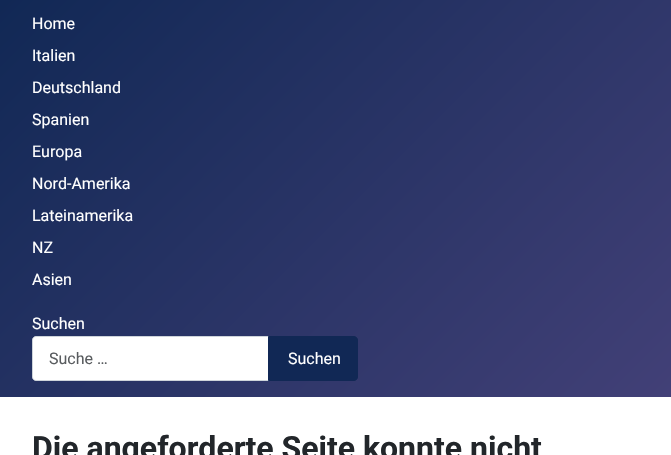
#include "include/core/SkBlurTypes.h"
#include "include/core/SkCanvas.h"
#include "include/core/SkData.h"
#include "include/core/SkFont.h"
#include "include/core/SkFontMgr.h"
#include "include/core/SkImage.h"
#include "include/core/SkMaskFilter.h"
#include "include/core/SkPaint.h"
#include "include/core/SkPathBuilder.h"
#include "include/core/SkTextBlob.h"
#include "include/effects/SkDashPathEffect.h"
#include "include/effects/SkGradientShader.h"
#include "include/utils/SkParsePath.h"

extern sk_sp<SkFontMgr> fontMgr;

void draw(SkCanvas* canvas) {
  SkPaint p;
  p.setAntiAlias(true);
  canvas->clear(SK_ColorWHITE);
  {
    const SkColor colors[] = {SkColorSetRGB(17, 40, 85), SkColorSetRGB(66, 64, 119)};
    const float stops[] = {0, 1};
    const SkPoint ends[] = {{69, -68}, {603, 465}};
    p.setShader(SkGradientShader::MakeLinear(ends, colors, stops, 2, SkTileMode::kClamp));
    p.setAlpha(255);
  }
  canvas->drawRect(SkRect::MakeLTRB(0, 0, 671, 397), p);
  p.setShader(nullptr);
  p.setColor(SK_ColorWHITE);
  canvas->drawPath(SkPathBuilder().moveTo(36, 336.5f).lineTo(268.5f, 336.5f).lineTo(268.5f, 380.5f).lineTo(36, 380.5f).cubicTo(34, 380.5f, 32.5f, 379, 32.5f, 377).lineTo(32.5f, 340).cubicTo(32.5f, 338, 34, 336.5f, 36, 336.5f).close().detach(), p);
  p.setStyle(SkPaint::kStroke_Style);
  p.setStrokeWidth(1);
  p.setColor(SkColorSetRGB(206, 212, 218));
  canvas->drawPath(SkPathBuilder().moveTo(36, 336.5f).lineTo(268.5f, 336.5f).lineTo(268.5f, 380.5f).lineTo(36, 380.5f).cubicTo(34, 380.5f, 32.5f, 379, 32.5f, 377).lineTo(32.5f, 340).cubicTo(32.5f, 338, 34, 336.5f, 36, 336.5f).close().detach(), p);
  p.setStyle(SkPaint::kFill_Style);
  p.setColor(SkColorSetRGB(17, 40, 85));
  canvas->drawPath(SkPathBuilder().moveTo(268.5f, 336.5f).lineTo(354, 336.5f).cubicTo(356, 336.5f, 357.5f, 338, 357.5f, 340).lineTo(357.5f, 377).cubicTo(357.5f, 379, 356, 380.5f, 354, 380.5f).lineTo(268.5f, 380.5f).close().detach(), p);
  p.setStyle(SkPaint::kStroke_Style);
  canvas->drawPath(SkPathBuilder().moveTo(268.5f, 336.5f).lineTo(354, 336.5f).cubicTo(356, 336.5f, 357.5f, 338, 357.5f, 340).lineTo(357.5f, 377).cubicTo(357.5f, 379, 356, 380.5f, 354, 380.5f).lineTo(268.5f, 380.5f).close().detach(), p);
  SkFont font1(fontMgr->matchFamilyStyle("Roboto", SkFontStyle::Normal()), 16);
  font1.setSubpixel(true);
  p.setStyle(SkPaint::kFill_Style);
  p.setColor(SK_ColorWHITE);
  canvas->drawString("Home", 32, 29, font1, p);
  canvas->drawString("Italien", 32, 61, font1, p);
  canvas->drawString("Deutschland", 32, 93, font1, p);
  canvas->drawString("Spanien", 32, 125, font1, p);
  canvas->drawString("Europa", 32, 157, font1, p);
  canvas->drawString("Nord-Amerika", 32, 189, font1, p);
  canvas->drawString("Lateinamerika", 32, 221, font1, p);
  canvas->drawString("NZ", 32, 253, font1, p);
  canvas->drawString("Asien", 32, 285, font1, p);
  canvas->drawString("Suchen", 32, 329, font1, p);
  p.setColor(SkColorSetRGB(89, 92, 95));
  canvas->drawString("Suche …", 49, 364, font1, p);
  p.setColor(SK_ColorWHITE);
  canvas->drawString("Suchen", 288, 364, font1, p);
  SkFont font2(fontMgr->matchFamilyStyle("Roboto", SkFontStyle::Bold()), 32);
  font2.setSubpixel(true);
  p.setColor(SkColorSetRGB(34, 38, 42));
  canvas->drawString("Die angeforderte Seite konnte nicht", 32, 459, font2, p);
}
